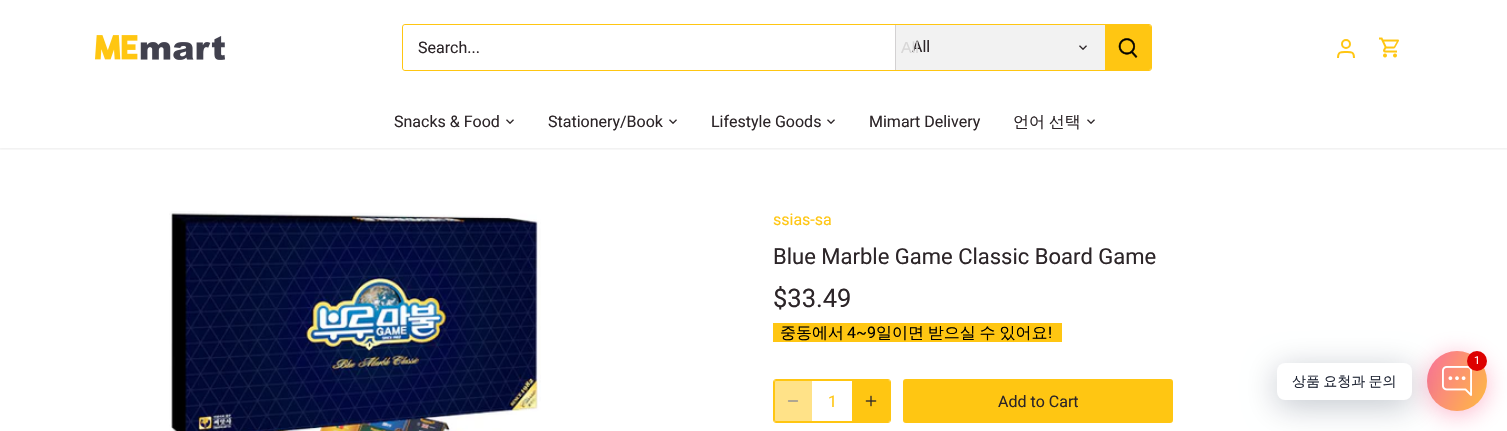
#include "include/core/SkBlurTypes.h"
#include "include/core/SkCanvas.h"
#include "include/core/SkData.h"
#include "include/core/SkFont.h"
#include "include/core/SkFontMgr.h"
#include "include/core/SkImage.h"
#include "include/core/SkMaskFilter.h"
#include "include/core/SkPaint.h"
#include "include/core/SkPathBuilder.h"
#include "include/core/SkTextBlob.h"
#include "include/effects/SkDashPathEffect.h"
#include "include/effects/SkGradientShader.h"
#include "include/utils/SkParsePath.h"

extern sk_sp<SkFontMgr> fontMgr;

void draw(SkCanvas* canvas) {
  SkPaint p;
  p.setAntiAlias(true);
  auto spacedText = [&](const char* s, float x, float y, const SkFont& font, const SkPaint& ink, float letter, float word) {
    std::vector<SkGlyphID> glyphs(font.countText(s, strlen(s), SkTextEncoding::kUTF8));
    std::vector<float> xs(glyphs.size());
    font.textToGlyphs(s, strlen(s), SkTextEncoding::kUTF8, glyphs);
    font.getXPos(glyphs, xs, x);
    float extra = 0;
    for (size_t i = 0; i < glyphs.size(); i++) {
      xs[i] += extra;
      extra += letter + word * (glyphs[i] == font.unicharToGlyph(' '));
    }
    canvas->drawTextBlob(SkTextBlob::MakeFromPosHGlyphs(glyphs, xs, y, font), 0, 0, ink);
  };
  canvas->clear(SK_ColorWHITE);
  canvas->save();
  canvas->clipRect(SkRect::MakeLTRB(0, 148, 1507, 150));
  p.setColor(SkColorSetARGB(20, 0, 0, 0));
  p.setMaskFilter(SkMaskFilter::MakeBlur(kNormal_SkBlurStyle, 1.5f));
  canvas->drawRect(SkRect::MakeLTRB(-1, -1, 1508, 149), p);
  p.setMaskFilter(nullptr);
  canvas->restore();
  canvas->drawImageRect(SkImages::DeferredFromEncodedData(SkData::MakeFromFileName("images/1.png")), SkRect::MakeLTRB(95, 35, 225, 60), SkSamplingOptions());
  p.setStyle(SkPaint::kStroke_Style);
  p.setStrokeWidth(1);
  p.setColor(SkColorSetRGB(255, 198, 18));
  canvas->drawRoundRect(SkRect::MakeLTRB(402.5f, 24.5f, 1151.5f, 70.5f), 2.5f, 2.5f, p);
  p.setStyle(SkPaint::kFill_Style);
  p.setColor(SK_ColorWHITE);
  canvas->drawPath(SkPathBuilder().moveTo(406, 25).lineTo(895, 25).lineTo(895, 70).lineTo(406, 70).cubicTo(404.5f, 70, 403, 68.5f, 403, 67).lineTo(403, 28).cubicTo(403, 26.5f, 404.5f, 25, 406, 25).close().detach(), p);
  p.setColor(SkColorSetRGB(242, 242, 242));
  canvas->drawRect(SkRect::MakeLTRB(896, 25, 1105, 70), p);
  p.setColor(SkColorSetRGB(211, 209, 210));
  canvas->drawRect(SkRect::MakeLTRB(895, 25, 896, 70), p);
  canvas->drawImageRect(SkImages::DeferredFromEncodedData(SkData::MakeFromFileName("images/2.png")), SkRect::MakeLTRB(1079, 45, 1087, 50), SkSamplingOptions());
  p.setColor(SkColorSetRGB(255, 198, 18));
  canvas->drawPath(SkPathBuilder().moveTo(1105, 25).lineTo(1149, 25).cubicTo(1150, 25, 1151, 26, 1151, 27).lineTo(1151, 68).cubicTo(1151, 69, 1150, 70, 1149, 70).lineTo(1105, 70).close().detach(), p);
  canvas->drawImageRect(SkImages::DeferredFromEncodedData(SkData::MakeFromFileName("images/3.png")), SkRect::MakeLTRB(1118, 38, 1138, 58), SkSamplingOptions());
  p.setStyle(SkPaint::kStroke_Style);
  p.setStrokeWidth(2);
  canvas->drawCircle(1346, 44, 4, p);
  canvas->drawPath(SkPathBuilder().moveTo(1354, 58).cubicTo(1354, 51.5f, 1351.5f, 52, 1346, 52).cubicTo(1340.5f, 52, 1338, 51.5f, 1338, 58).detach(), p);
  canvas->drawImageRect(SkImages::DeferredFromEncodedData(SkData::MakeFromFileName("images/4.png")), SkRect::MakeLTRB(1379, 37, 1399, 58), SkSamplingOptions());
  canvas->drawImageRect(SkImages::DeferredFromEncodedData(SkData::MakeFromFileName("images/5.png")), SkRect::MakeLTRB(506, 119, 514, 124), SkSamplingOptions());
  canvas->drawImageRect(SkImages::DeferredFromEncodedData(SkData::MakeFromFileName("images/5.png")), SkRect::MakeLTRB(669, 119, 677, 124), SkSamplingOptions());
  canvas->drawImageRect(SkImages::DeferredFromEncodedData(SkData::MakeFromFileName("images/5.png")), SkRect::MakeLTRB(827, 119, 835, 124), SkSamplingOptions());
  canvas->drawImageRect(SkImages::DeferredFromEncodedData(SkData::MakeFromFileName("images/5.png")), SkRect::MakeLTRB(1087, 119, 1095, 124), SkSamplingOptions());
  canvas->drawImageRect(SkImages::DeferredFromEncodedData(SkData::MakeFromFileName("images/6.png")), SkRect::MakeLTRB(169, 211, 541, 431), SkSamplingOptions());
  p.setStyle(SkPaint::kFill_Style);
  canvas->drawRect(SkRect::MakeLTRB(773, 323, 1062, 342), p);
  p.setStyle(SkPaint::kStroke_Style);
  p.setStrokeWidth(1);
  canvas->drawRoundRect(SkRect::MakeLTRB(774.5f, 380.5f, 889.5f, 421.5f), 1.5f, 1.5f, p);
  canvas->drawRoundRect(SkRect::MakeLTRB(773.5f, 379.5f, 890.5f, 422.5f), 2.5f, 2.5f, p);
  p.setStyle(SkPaint::kFill_Style);
  p.setColor(SkColorSetARGB(128, 255, 198, 18));
  canvas->drawPath(SkPathBuilder().moveTo(777, 380).lineTo(812, 380).lineTo(812, 422).lineTo(777, 422).cubicTo(775.5f, 422, 774, 420.5f, 774, 419).lineTo(774, 383).cubicTo(774, 381.5f, 775.5f, 380, 777, 380).close().detach(), p);
  p.setStyle(SkPaint::kStroke_Style);
  p.setStrokeWidth(1.3f);
  p.setStrokeCap(SkPaint::kRound_Cap);
  p.setStrokeJoin(SkPaint::kRound_Join);
  p.setColor(SkColorSetRGB(150, 146, 148));
  canvas->drawPath(SkPathBuilder().moveTo(788.5f, 401).lineTo(797.5f, 401).detach(), p);
  canvas->save();
  canvas->clipPath(SkPathBuilder().moveTo(776, 380).lineTo(888, 380).cubicTo(889, 380, 890, 381, 890, 382).lineTo(890, 420).cubicTo(890, 421, 889, 422, 888, 422).lineTo(776, 422).cubicTo(775, 422, 774, 421, 774, 420).lineTo(774, 382).cubicTo(774, 381, 775, 380, 776, 380).close().detach(), true);
  p.setStyle(SkPaint::kFill_Style);
  p.setColor(SkColorSetRGB(255, 198, 18));
  canvas->drawPath(SkPathBuilder().moveTo(852, 380).lineTo(887, 380).cubicTo(888.5f, 380, 890, 381.5f, 890, 383).lineTo(890, 419).cubicTo(890, 420.5f, 888.5f, 422, 887, 422).lineTo(852, 422).close().detach(), p);
  canvas->restore();
  canvas->drawImageRect(SkImages::DeferredFromEncodedData(SkData::MakeFromFileName("images/7.png")), SkRect::MakeLTRB(865, 395, 877, 407), SkSamplingOptions());
  canvas->drawRoundRect(SkRect::MakeLTRB(904, 380, 1172, 422), 2, 2, p);
  p.setStyle(SkPaint::kStroke_Style);
  p.setStrokeWidth(2);
  p.setStrokeCap(SkPaint::kButt_Cap);
  p.setStrokeJoin(SkPaint::kMiter_Join);
  canvas->drawRoundRect(SkRect::MakeLTRB(904, 380, 1172, 422), 2, 2, p);
  p.setStyle(SkPaint::kFill_Style);
  p.setColor(SkColorSetARGB(128, 250, 112, 154));
  p.setMaskFilter(SkMaskFilter::MakeBlur(kNormal_SkBlurStyle, 12));
  canvas->drawRoundRect(SkRect::MakeLTRB(1427, 355, 1487, 415), 30, 30, p);
  p.setMaskFilter(nullptr);
  {
    const SkColor colors[] = {SkColorSetRGB(250, 112, 154), SkColorSetRGB(254, 187, 64)};
    const float stops[] = {0, 1};
    const SkPoint ends[] = {{1421, 364}, {1493, 398}};
    p.setShader(SkGradientShader::MakeLinear(ends, colors, stops, 2, SkTileMode::kClamp));
    p.setAlpha(255);
  }
  canvas->drawCircle(1457, 381, 30, p);
  p.setShader(nullptr);
  p.setColor(SkColorSetARGB(61, 0, 18, 46));
  p.setMaskFilter(SkMaskFilter::MakeBlur(kNormal_SkBlurStyle, 16));
  canvas->drawRoundRect(SkRect::MakeLTRB(1277, 369, 1412, 406), 8, 8, p);
  p.setMaskFilter(nullptr);
  canvas->drawImageRect(SkImages::DeferredFromEncodedData(SkData::MakeFromFileName("images/8.png")), SkRect::MakeLTRB(1442, 366, 1472, 396), SkSamplingOptions());
  p.setColor(SkColorSetRGB(221, 0, 0));
  canvas->drawCircle(1477, 361, 10, p);
  p.setColor(SK_ColorWHITE);
  canvas->drawRoundRect(SkRect::MakeLTRB(1277, 363, 1412, 400), 8, 8, p);
  SkFont font1(fontMgr->matchFamilyStyle("Roboto", SkFontStyle::Normal()), 16);
  font1.setSubpixel(true);
  p.setColor(SkColorSetRGB(44, 37, 40));
  canvas->drawString("Search...", 418, 53, font1, p);
  canvas->drawString("All", 912, 52, font1, p);
  SkFont font2(fontMgr->matchFamilyStyle("Liberation Sans", SkFontStyle::Normal()), 16);
  font2.setSubpixel(true);
  p.setColor(SkColorSetRGB(216, 215, 215));
  canvas->drawString("All", 901, 53, font2, p);
  p.setColor(SkColorSetRGB(44, 37, 40));
  canvas->drawString("Snacks & Food", 394, 127, font1, p);
  canvas->drawString("Stationery/Book", 548, 127, font1, p);
  canvas->drawString("Lifestyle Goods", 711, 127, font1, p);
  canvas->drawString("Mimart Delivery", 869, 127, font1, p);
  SkFont font3(fontMgr->matchFamilyStyle("WenQuanYi Zen Hei", SkFontStyle(500, SkFontStyle::kNormal_Width, SkFontStyle::kUpright_Slant)), 16);
  font3.setSubpixel(true);
  spacedText("언어 선택", 1013, 127, font3, p, 0, -1);
  p.setColor(SkColorSetRGB(255, 198, 18));
  canvas->drawString("ssias-sa", 773, 225, font1, p);
  SkFont font4(fontMgr->matchFamilyStyle("Roboto", SkFontStyle::Normal()), 22);
  font4.setSubpixel(true);
  p.setColor(SkColorSetRGB(44, 37, 40));
  canvas->drawString("Blue Marble Game Classic Board Game", 773, 264, font4, p);
  SkFont font5(fontMgr->matchFamilyStyle("Roboto", SkFontStyle::Normal()), 25.5f);
  font5.setSubpixel(true);
  canvas->drawString("$33.49", 773, 307, font5, p);
  p.setColor(SK_ColorBLACK);
  canvas->drawString("중동에서", 780, 338, font3, p);
  canvas->drawString("4~9", 847, 338, font1, p);
  spacedText("일이면 받으실 수 있어요", 876, 338, font3, p, 0, -1);
  canvas->drawString("!", 1048, 338, font1, p);
  p.setColor(SkColorSetRGB(255, 198, 18));
  canvas->drawString("1", 828, 407, font1, p);
  p.setColor(SkColorSetRGB(44, 37, 40));
  canvas->drawString("Add to Cart", 998, 407, font1, p);
  p.setStyle(SkPaint::kStroke_Style);
  p.setColor(SkColorSetRGB(255, 198, 18));
  canvas->drawPath(SkPathBuilder().moveTo(1033, 396).cubicTo(1035.5f, 393.5f, 1040.5f, 393.5f, 1043, 396).detach(), p);
  SkFont font6(fontMgr->matchFamilyStyle("Roboto", SkFontStyle::Normal()), 11);
  font6.setSubpixel(true);
  p.setStyle(SkPaint::kFill_Style);
  p.setColor(SK_ColorWHITE);
  canvas->drawString("1", 1474, 364, font6, p);
  SkFont font7(fontMgr->matchFamilyStyle("WenQuanYi Zen Hei", SkFontStyle(500, SkFontStyle::kNormal_Width, SkFontStyle::kUpright_Slant)), 14);
  font7.setSubpixel(true);
  p.setColor(SkColorSetRGB(30, 36, 51));
  spacedText("상품 요청과 문의", 1292, 386, font7, p, 0, -1);
}
